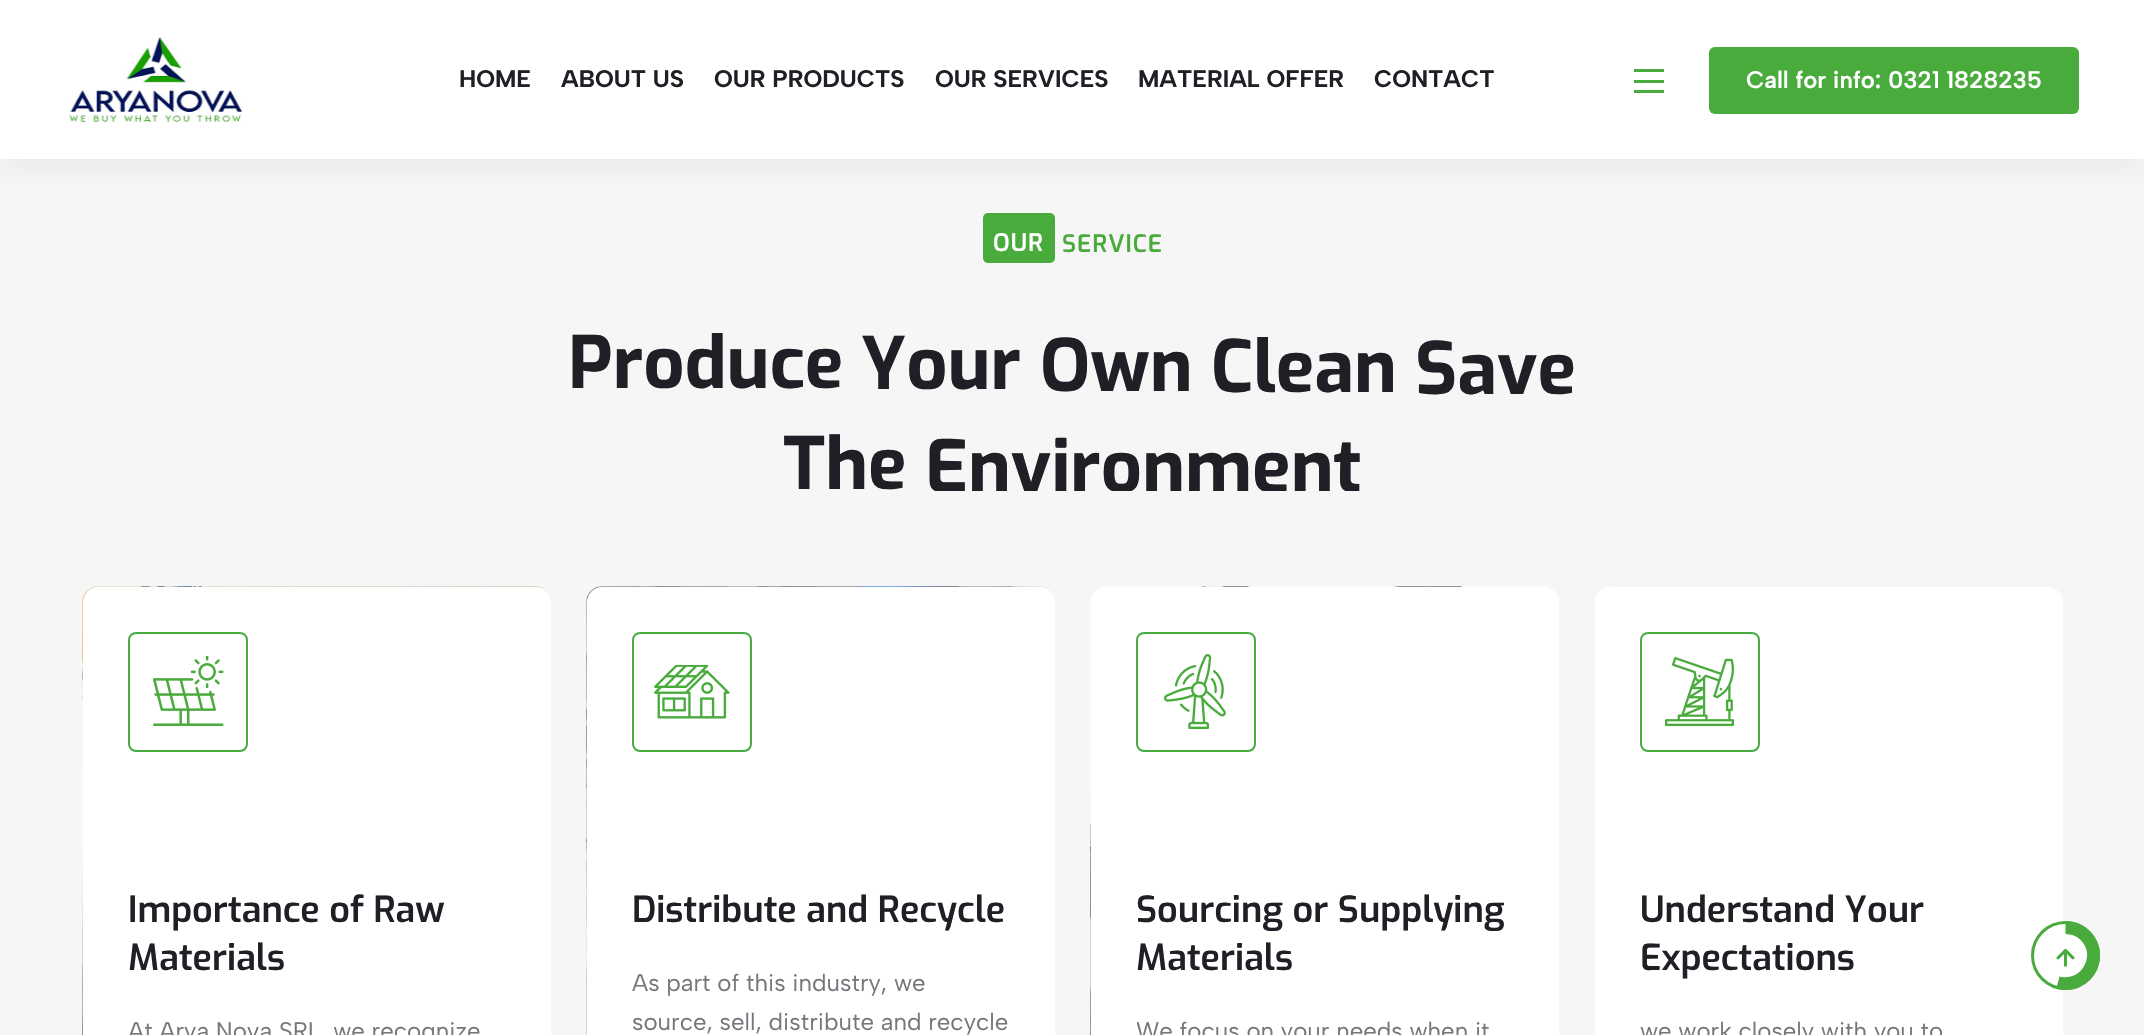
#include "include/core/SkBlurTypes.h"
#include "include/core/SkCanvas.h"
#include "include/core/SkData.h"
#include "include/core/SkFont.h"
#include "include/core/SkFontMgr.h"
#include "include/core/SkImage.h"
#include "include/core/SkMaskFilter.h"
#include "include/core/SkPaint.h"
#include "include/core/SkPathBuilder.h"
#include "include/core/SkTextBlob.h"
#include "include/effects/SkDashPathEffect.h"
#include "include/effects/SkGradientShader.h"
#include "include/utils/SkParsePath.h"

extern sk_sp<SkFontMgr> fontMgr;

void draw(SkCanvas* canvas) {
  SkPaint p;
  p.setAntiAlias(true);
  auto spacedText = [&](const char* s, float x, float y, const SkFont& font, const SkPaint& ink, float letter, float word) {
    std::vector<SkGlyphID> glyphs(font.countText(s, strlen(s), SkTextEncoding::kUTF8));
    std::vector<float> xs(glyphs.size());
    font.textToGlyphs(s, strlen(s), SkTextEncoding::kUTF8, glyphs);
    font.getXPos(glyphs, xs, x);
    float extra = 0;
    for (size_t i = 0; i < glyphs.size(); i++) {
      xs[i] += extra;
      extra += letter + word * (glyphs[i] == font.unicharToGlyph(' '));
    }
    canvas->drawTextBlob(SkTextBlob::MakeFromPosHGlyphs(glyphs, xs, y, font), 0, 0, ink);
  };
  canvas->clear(SkColorSetRGB(246, 246, 246));
  p.setColor(SkColorSetARGB(13, 24, 16, 16));
  p.setMaskFilter(SkMaskFilter::MakeBlur(kNormal_SkBlurStyle, 13.5f));
  canvas->drawRect(SkRect::MakeLTRB(0, 11, 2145, 170), p);
  p.setMaskFilter(nullptr);
  p.setColor(SK_ColorWHITE);
  canvas->drawRect(SkRect::MakeLTRB(0, 0, 2144, 159), p);
  canvas->drawImageRect(SkImages::DeferredFromEncodedData(SkData::MakeFromFileName("images/1.png")), SkRect::MakeLTRB(69, 37, 243, 122), SkSamplingOptions());
  p.setColor(SkColorSetRGB(74, 171, 61));
  canvas->drawRect(SkRect::MakeLTRB(1634, 69, 1664, 72), p);
  canvas->drawRect(SkRect::MakeLTRB(1634, 80, 1664, 83), p);
  canvas->drawRect(SkRect::MakeLTRB(1634, 90, 1664, 93), p);
  canvas->drawRoundRect(SkRect::MakeLTRB(1709, 47, 2079, 114), 6, 6, p);
  canvas->drawRoundRect(SkRect::MakeLTRB(983, 213, 1055, 263), 5, 5, p);
  canvas->drawImageRect(SkImages::DeferredFromEncodedData(SkData::MakeFromFileName("images/2.png")), SkRect::MakeLTRB(82, 586, 551, 1035), SkSamplingOptions());
  p.setColor(SK_ColorWHITE);
  canvas->drawRoundRect(SkRect::MakeLTRB(83, 587, 551, 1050), 15, 15, p);
  p.setStyle(SkPaint::kStroke_Style);
  p.setStrokeWidth(2);
  p.setColor(SkColorSetRGB(74, 171, 61));
  canvas->drawRoundRect(SkRect::MakeLTRB(129, 633, 247, 751), 7, 7, p);
  canvas->drawImageRect(SkImages::DeferredFromEncodedData(SkData::MakeFromFileName("images/3.png")), SkRect::MakeLTRB(153, 656, 224, 726), SkSamplingOptions());
  canvas->drawImageRect(SkImages::DeferredFromEncodedData(SkData::MakeFromFileName("images/4.png")), SkRect::MakeLTRB(586, 586, 1055, 1035), SkSamplingOptions());
  p.setStyle(SkPaint::kFill_Style);
  p.setColor(SK_ColorWHITE);
  canvas->drawRoundRect(SkRect::MakeLTRB(587, 587, 1055, 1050), 15, 15, p);
  p.setStyle(SkPaint::kStroke_Style);
  p.setColor(SkColorSetRGB(74, 171, 61));
  canvas->drawRoundRect(SkRect::MakeLTRB(633, 633, 751, 751), 7, 7, p);
  canvas->drawImageRect(SkImages::DeferredFromEncodedData(SkData::MakeFromFileName("images/5.png")), SkRect::MakeLTRB(654, 665, 730, 719), SkSamplingOptions());
  canvas->drawImageRect(SkImages::DeferredFromEncodedData(SkData::MakeFromFileName("images/6.png")), SkRect::MakeLTRB(1090, 586, 1559, 1035), SkSamplingOptions());
  p.setStyle(SkPaint::kFill_Style);
  p.setColor(SK_ColorWHITE);
  canvas->drawRoundRect(SkRect::MakeLTRB(1091, 587, 1559, 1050), 15, 15, p);
  p.setStyle(SkPaint::kStroke_Style);
  p.setColor(SkColorSetRGB(74, 171, 61));
  canvas->drawRoundRect(SkRect::MakeLTRB(1137, 633, 1255, 751), 7, 7, p);
  canvas->drawImageRect(SkImages::DeferredFromEncodedData(SkData::MakeFromFileName("images/7.png")), SkRect::MakeLTRB(1164, 654, 1226, 729), SkSamplingOptions());
  p.setStyle(SkPaint::kFill_Style);
  p.setColor(SK_ColorWHITE);
  canvas->drawRoundRect(SkRect::MakeLTRB(1595, 587, 2063, 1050), 15, 15, p);
  p.setStyle(SkPaint::kStroke_Style);
  p.setColor(SkColorSetRGB(74, 171, 61));
  canvas->drawRoundRect(SkRect::MakeLTRB(1641, 633, 1759, 751), 7, 7, p);
  canvas->drawImageRect(SkImages::DeferredFromEncodedData(SkData::MakeFromFileName("images/8.png")), SkRect::MakeLTRB(1665, 657, 1734, 726), SkSamplingOptions());
  p.setStyle(SkPaint::kFill_Style);
  p.setColor(SK_ColorWHITE);
  canvas->drawCircle(2065.5f, 955.5f, 34.5f, p);
  canvas->save();
  canvas->clipPath(SkPathBuilder().moveTo(2065.5f, 921).cubicTo(2084.5f, 921, 2100, 936.5f, 2100, 955.5f).cubicTo(2100, 974.5f, 2084.5f, 990, 2065.5f, 990).cubicTo(2046.5f, 990, 2031, 974.5f, 2031, 955.5f).cubicTo(2031, 936.5f, 2046.5f, 921, 2065.5f, 921).close().detach(), true);
  p.setStyle(SkPaint::kStroke_Style);
  p.setStrokeWidth(23);
  p.setColor(SkColorSetRGB(74, 171, 61));
  canvas->drawPath(SkPathBuilder().moveTo(2065.5f, 922.5f).cubicTo(2074, 922.5f, 2083, 926, 2089, 932).cubicTo(2113, 956.5f, 2088.5f, 996.5f, 2056.5f, 987.5f).detach(), p);
  canvas->restore();
  p.setStrokeWidth(3);
  canvas->drawCircle(2065.5f, 955.5f, 33, p);
  canvas->drawImageRect(SkImages::DeferredFromEncodedData(SkData::MakeFromFileName("images/9.png")), SkRect::MakeLTRB(2056, 948, 2075, 967), SkSamplingOptions());
  SkFont font1(fontMgr->matchFamilyStyle("Albert Sans", SkFontStyle::Bold()), 24);
  font1.setSubpixel(true);
  p.setStyle(SkPaint::kFill_Style);
  p.setColor(SkColorSetRGB(31, 31, 37));
  canvas->drawString("HOME", 459, 87, font1, p);
  canvas->drawString("ABOUT US", 561, 87, font1, p);
  canvas->drawString("OUR PRODUCTS", 714, 87, font1, p);
  canvas->drawString("OUR SERVICES", 935, 87, font1, p);
  canvas->drawString("MATERIAL OFFER", 1138, 87, font1, p);
  canvas->drawString("CONTACT", 1374, 87, font1, p);
  SkFont font2(fontMgr->matchFamilyStyle("Albert Sans", SkFontStyle(600, SkFontStyle::kNormal_Width, SkFontStyle::kUpright_Slant)), 24);
  font2.setSubpixel(true);
  p.setColor(SK_ColorWHITE);
  canvas->drawString("Call for info: 0321 1828235", 1746, 88, font2, p);
  SkFont font3(fontMgr->matchFamilyStyle("Exo", SkFontStyle(600, SkFontStyle::kNormal_Width, SkFontStyle::kUpright_Slant)), 24);
  font3.setSubpixel(true);
  spacedText("OUR", 993, 251, font3, p, 1, 0);
  p.setColor(SkColorSetRGB(74, 171, 61));
  spacedText("SERVICE", 1062, 252, font3, p, 1, 0);
  SkFont font4(fontMgr->matchFamilyStyle("Exo", SkFontStyle::Bold()), 72);
  font4.setSubpixel(true);
  p.setColor(SkColorSetRGB(31, 31, 37));
  canvas->drawString("Produce", 568, 388, font4, p);
  canvas->drawString("Your", 861, 389, font4, p);
  canvas->drawString("Own", 1040, 391, font4, p);
  canvas->drawString("Clean", 1211, 392, font4, p);
  canvas->drawString("Save", 1415, 394, font4, p);
  canvas->drawString("The", 783, 489, font4, p);
  canvas->save();
  canvas->clipRect(SkRect::MakeLTRB(83, 398, 2063, 491));
  canvas->drawString("Environment", 925, 492, font4, p);
  canvas->restore();
  SkFont font5(fontMgr->matchFamilyStyle("Exo", SkFontStyle(600, SkFontStyle::kNormal_Width, SkFontStyle::kUpright_Slant)), 36);
  font5.setSubpixel(true);
  canvas->drawString("Importance of Raw", 128, 922, font5, p);
  canvas->drawString("Materials", 128, 970, font5, p);
  SkFont font6(fontMgr->matchFamilyStyle("Albert Sans", SkFontStyle::Normal()), 24);
  font6.setSubpixel(true);
  p.setColor(SkColorSetRGB(116, 120, 124));
  canvas->drawString("At Arya Nova SRL, we recognize", 128, 1039, font6, p);
  p.setColor(SkColorSetRGB(31, 31, 37));
  canvas->drawString("Distribute and Recycle", 632, 922, font5, p);
  p.setColor(SkColorSetRGB(116, 120, 124));
  canvas->drawString("As part of this industry, we", 632, 991, font6, p);
  canvas->drawString("source, sell, distribute and recycle", 632, 1030, font6, p);
  p.setColor(SkColorSetRGB(31, 31, 37));
  canvas->drawString("Sourcing or Supplying", 1136, 922, font5, p);
  canvas->drawString("Materials", 1136, 970, font5, p);
  p.setColor(SkColorSetRGB(116, 120, 124));
  canvas->drawString("We focus on your needs when it", 1136, 1039, font6, p);
  p.setColor(SkColorSetRGB(31, 31, 37));
  canvas->drawString("Understand Your", 1640, 922, font5, p);
  canvas->drawString("Expectations", 1640, 970, font5, p);
  p.setColor(SkColorSetRGB(116, 120, 124));
  canvas->drawString("we work closely with you to", 1640, 1039, font6, p);
}
